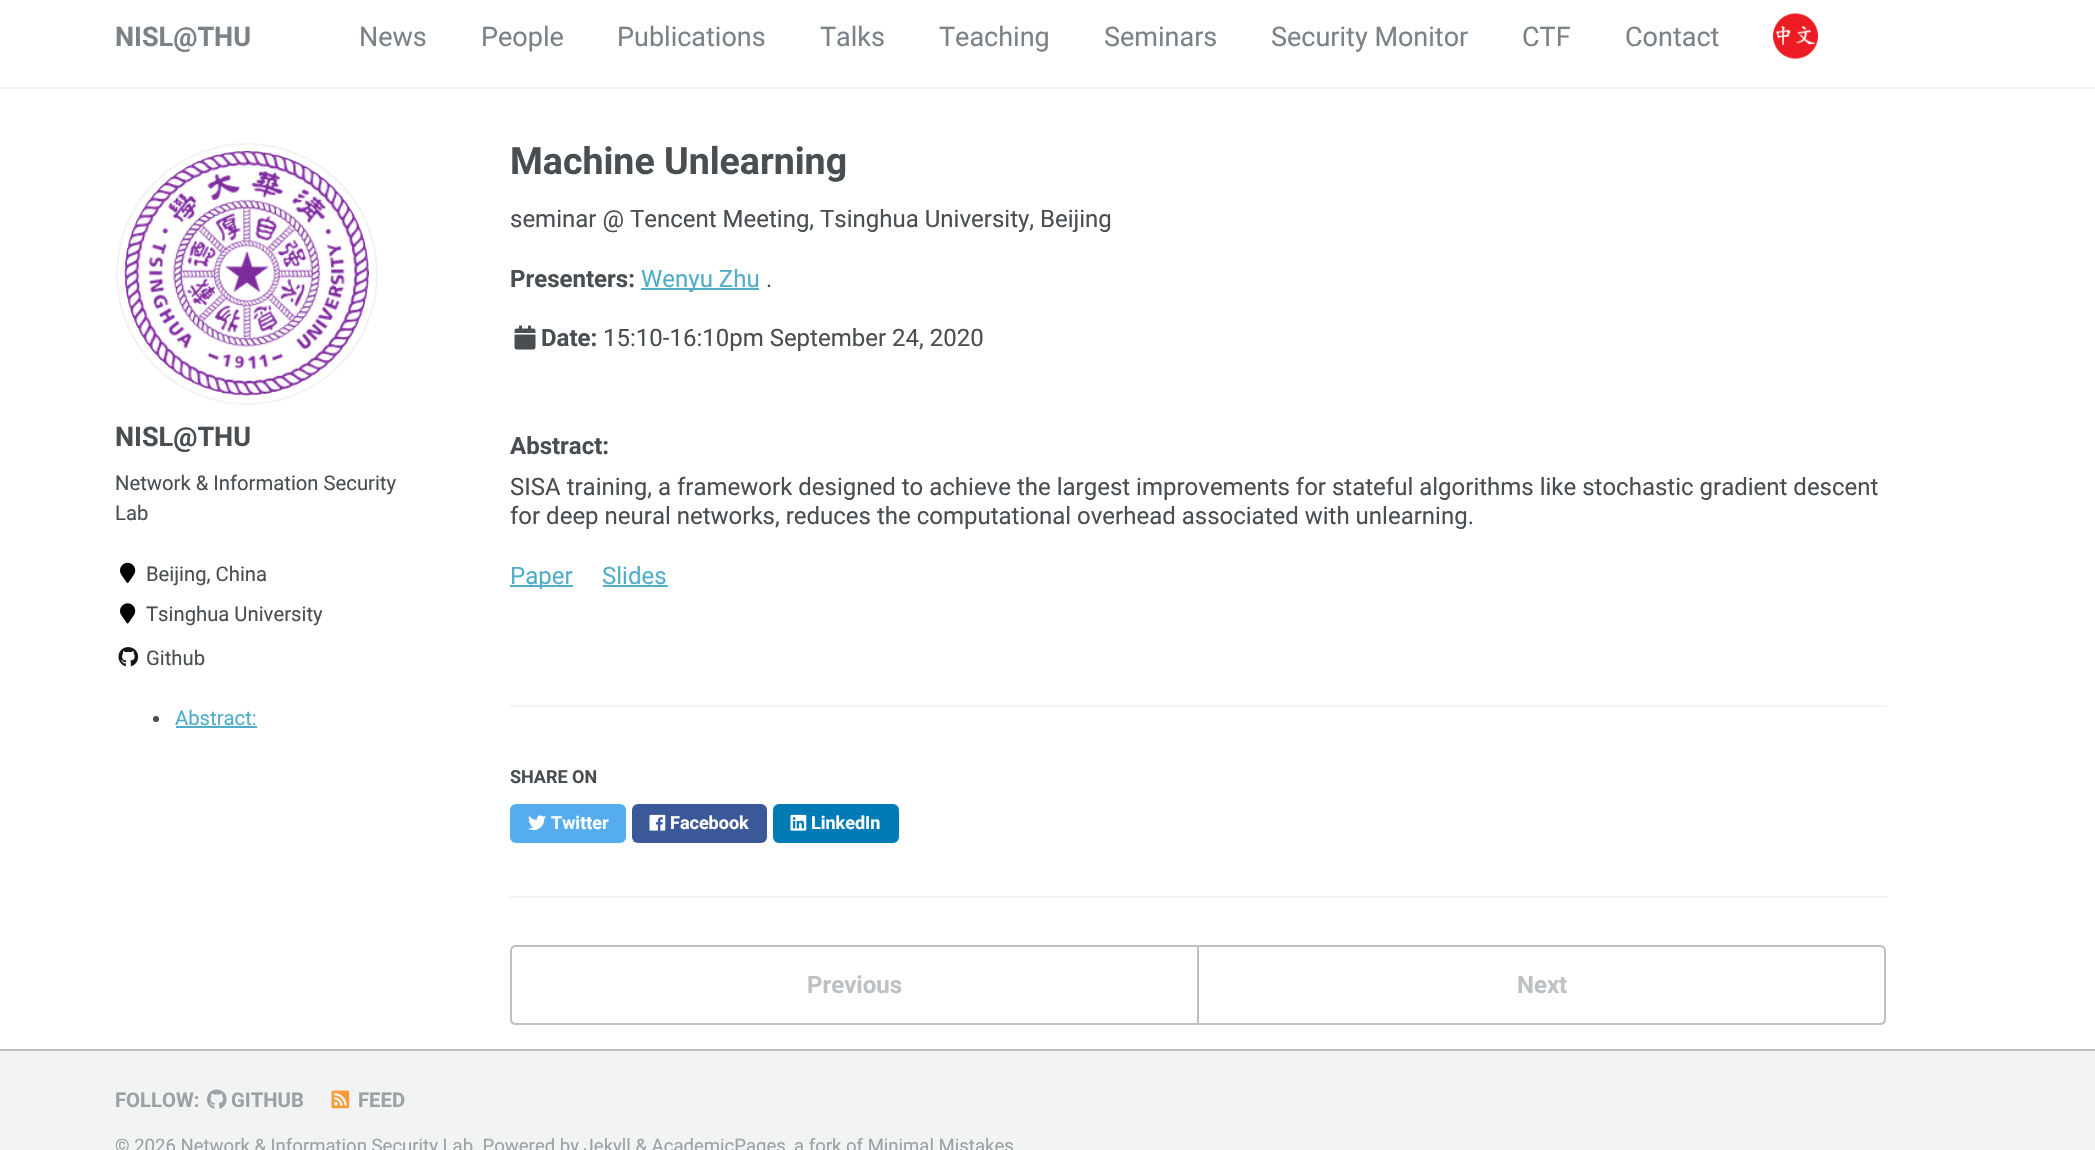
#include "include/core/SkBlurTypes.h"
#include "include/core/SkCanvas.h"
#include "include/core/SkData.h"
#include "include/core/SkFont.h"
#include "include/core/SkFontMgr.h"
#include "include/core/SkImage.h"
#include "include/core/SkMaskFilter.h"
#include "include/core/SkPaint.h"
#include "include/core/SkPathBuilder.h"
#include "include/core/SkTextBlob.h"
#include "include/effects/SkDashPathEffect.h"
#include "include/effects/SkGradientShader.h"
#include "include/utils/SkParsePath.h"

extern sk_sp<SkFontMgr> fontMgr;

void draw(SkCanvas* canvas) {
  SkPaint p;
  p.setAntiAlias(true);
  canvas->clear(SK_ColorWHITE);
  p.setColor(SkColorSetRGB(242, 243, 243));
  canvas->drawRect(SkRect::MakeLTRB(0, 87, 2095, 89), p);
  canvas->drawImageRect(SkImages::DeferredFromEncodedData(SkData::MakeFromFileName("images/1.png")), SkRect::MakeLTRB(1773, 13, 1818, 59), SkSamplingOptions());
  p.setStyle(SkPaint::kStroke_Style);
  p.setStrokeWidth(2);
  canvas->drawCircle(247, 274, 130, p);
  canvas->drawImageRect(SkImages::DeferredFromEncodedData(SkData::MakeFromFileName("images/2.png")), SkRect::MakeLTRB(124, 151, 369, 396), SkSamplingOptions());
  canvas->drawImageRect(SkImages::DeferredFromEncodedData(SkData::MakeFromFileName("images/3.png")), SkRect::MakeLTRB(120, 562, 136, 583), SkSamplingOptions());
  canvas->drawImageRect(SkImages::DeferredFromEncodedData(SkData::MakeFromFileName("images/4.png")), SkRect::MakeLTRB(120, 603, 136, 624), SkSamplingOptions());
  canvas->drawImageRect(SkImages::DeferredFromEncodedData(SkData::MakeFromFileName("images/5.png")), SkRect::MakeLTRB(118, 647, 139, 667), SkSamplingOptions());
  p.setStyle(SkPaint::kFill_Style);
  p.setColor(SkColorSetRGB(73, 78, 82));
  canvas->drawCircle(156, 719, 3, p);
  p.setColor(SkColorSetRGB(82, 173, 200));
  canvas->drawRect(SkRect::MakeLTRB(176, 726, 257, 728), p);
  canvas->drawRect(SkRect::MakeLTRB(641, 288, 759, 290), p);
  canvas->drawImageRect(SkImages::DeferredFromEncodedData(SkData::MakeFromFileName("images/6.png")), SkRect::MakeLTRB(514, 325, 536, 350), SkSamplingOptions());
  canvas->drawRect(SkRect::MakeLTRB(510, 585, 573, 587), p);
  canvas->drawRect(SkRect::MakeLTRB(603, 585, 668, 587), p);
  p.setColor(SkColorSetRGB(242, 243, 243));
  canvas->drawRect(SkRect::MakeLTRB(510, 705, 1887, 707), p);
  p.setColor(SkColorSetRGB(85, 172, 238));
  canvas->drawRoundRect(SkRect::MakeLTRB(510, 804, 626, 843), 6, 6, p);
  canvas->drawImageRect(SkImages::DeferredFromEncodedData(SkData::MakeFromFileName("images/7.png")), SkRect::MakeLTRB(528, 815, 546, 831), SkSamplingOptions());
  p.setColor(SkColorSetRGB(59, 89, 152));
  canvas->drawRoundRect(SkRect::MakeLTRB(632, 804, 767, 843), 6, 6, p);
  canvas->drawImageRect(SkImages::DeferredFromEncodedData(SkData::MakeFromFileName("images/8.png")), SkRect::MakeLTRB(649, 814, 666, 831), SkSamplingOptions());
  p.setColor(SkColorSetRGB(0, 123, 182));
  canvas->drawRoundRect(SkRect::MakeLTRB(773, 804, 899, 843), 6, 6, p);
  canvas->drawImageRect(SkImages::DeferredFromEncodedData(SkData::MakeFromFileName("images/9.png")), SkRect::MakeLTRB(790, 814, 807, 831), SkSamplingOptions());
  p.setColor(SkColorSetRGB(242, 243, 243));
  canvas->drawRect(SkRect::MakeLTRB(510, 896, 1887, 898), p);
  p.setStyle(SkPaint::kStroke_Style);
  p.setColor(SkColorSetRGB(189, 193, 196));
  canvas->drawPath(SkPathBuilder().moveTo(516, 946).lineTo(1198, 946).lineTo(1198, 1024).lineTo(516, 1024).cubicTo(513, 1024, 511, 1022, 511, 1019).lineTo(511, 951).cubicTo(511, 948, 513, 946, 516, 946).close().detach(), p);
  canvas->drawPath(SkPathBuilder().moveTo(1198, 946).lineTo(1880, 946).cubicTo(1883, 946, 1885, 948, 1885, 951).lineTo(1885, 1019).cubicTo(1885, 1022, 1883, 1024, 1880, 1024).lineTo(1198, 1024).close().detach(), p);
  p.setStyle(SkPaint::kFill_Style);
  p.setColor(SkColorSetRGB(242, 243, 243));
  canvas->drawRect(SkRect::MakeLTRB(0, 1051, 2095, 1150), p);
  p.setColor(SkColorSetRGB(189, 193, 196));
  canvas->drawRect(SkRect::MakeLTRB(0, 1049, 2095, 1051), p);
  canvas->drawImageRect(SkImages::DeferredFromEncodedData(SkData::MakeFromFileName("images/10.png")), SkRect::MakeLTRB(207, 1089, 227, 1109), SkSamplingOptions());
  canvas->drawImageRect(SkImages::DeferredFromEncodedData(SkData::MakeFromFileName("images/11.png")), SkRect::MakeLTRB(331, 1090, 350, 1109), SkSamplingOptions());
  SkFont font1(fontMgr->matchFamilyStyle("Roboto", SkFontStyle::Bold()), 27);
  font1.setSubpixel(true);
  p.setColor(SkColorSetRGB(122, 130, 136));
  canvas->drawString("NISL@THU", 115, 46, font1, p);
  SkFont font2(fontMgr->matchFamilyStyle("Roboto", SkFontStyle::Normal()), 27);
  font2.setSubpixel(true);
  canvas->drawString("News", 359, 46, font2, p);
  canvas->drawString("People", 481, 46, font2, p);
  canvas->drawString("Publications", 617, 46, font2, p);
  canvas->drawString("Talks", 820, 46, font2, p);
  canvas->drawString("Teaching", 939, 46, font2, p);
  canvas->drawString("Seminars", 1104, 46, font2, p);
  canvas->drawString("Security Monitor", 1271, 46, font2, p);
  canvas->drawString("CTF", 1522, 46, font2, p);
  canvas->drawString("Contact", 1625, 46, font2, p);
  p.setColor(SkColorSetRGB(73, 78, 82));
  canvas->drawString("NISL@THU", 115, 446, font1, p);
  SkFont font3(fontMgr->matchFamilyStyle("Roboto", SkFontStyle::Normal()), 20.25f);
  font3.setSubpixel(true);
  canvas->drawString("Network & Information Security", 115, 490, font3, p);
  canvas->drawString("Lab", 115, 520, font3, p);
  canvas->drawString("Beijing, China", 146, 581, font3, p);
  canvas->drawString("Tsinghua University", 146, 621, font3, p);
  canvas->drawString("Github", 146, 665, font3, p);
  p.setColor(SkColorSetRGB(82, 173, 200));
  canvas->drawString("Abstract:", 175, 725, font3, p);
  SkFont font4(fontMgr->matchFamilyStyle("Roboto", SkFontStyle::Bold()), 37.5f);
  font4.setSubpixel(true);
  p.setColor(SkColorSetRGB(73, 78, 82));
  canvas->drawString("Machine Unlearning", 510, 174, font4, p);
  SkFont font5(fontMgr->matchFamilyStyle("Roboto", SkFontStyle::Normal()), 24);
  font5.setSubpixel(true);
  canvas->drawString("seminar @ Tencent Meeting, Tsinghua University, Beijing", 510, 227, font5, p);
  SkFont font6(fontMgr->matchFamilyStyle("Roboto", SkFontStyle::Bold()), 24);
  font6.setSubpixel(true);
  canvas->drawString("Presenters:", 510, 287, font6, p);
  p.setColor(SkColorSetRGB(82, 173, 200));
  canvas->drawString("Wenyu Zhu", 641, 287, font5, p);
  p.setColor(SkColorSetRGB(73, 78, 82));
  canvas->drawString(".", 766, 287, font5, p);
  canvas->drawString("Date:", 541, 346, font6, p);
  canvas->drawString("15:10-16:10pm September 24, 2020", 603, 346, font5, p);
  canvas->drawString("Abstract:", 510, 454, font6, p);
  canvas->drawString("SISA training, a framework designed to achieve the largest improvements for stateful algorithms like stochastic gradient descent", 510, 495, font5, p);
  canvas->drawString("for deep neural networks, reduces the computational overhead associated with unlearning.", 510, 524, font5, p);
  p.setColor(SkColorSetRGB(82, 173, 200));
  canvas->drawString("Paper", 510, 584, font5, p);
  canvas->drawString("Slides", 602, 584, font5, p);
  SkFont font7(fontMgr->matchFamilyStyle("Roboto", SkFontStyle::Bold()), 18);
  font7.setSubpixel(true);
  p.setColor(SkColorSetRGB(73, 78, 82));
  canvas->drawString("SHARE ON", 510, 783, font7, p);
  p.setColor(SK_ColorWHITE);
  canvas->drawString("Twitter", 551, 829, font7, p);
  canvas->drawString("Facebook", 670, 829, font7, p);
  canvas->drawString("LinkedIn", 811, 829, font7, p);
  p.setColor(SkColorSetRGB(189, 193, 196));
  canvas->drawString("Previous", 807, 993, font6, p);
  canvas->drawString("Next", 1517, 993, font6, p);
  SkFont font8(fontMgr->matchFamilyStyle("Roboto", SkFontStyle::Bold()), 20.25f);
  font8.setSubpixel(true);
  p.setColor(SkColorSetRGB(155, 161, 166));
  canvas->drawString("FOLLOW:", 115, 1107, font8, p);
  canvas->drawString("GITHUB", 231, 1107, font8, p);
  canvas->drawString("FEED", 358, 1107, font8, p);
  SkFont font9(fontMgr->matchFamilyStyle("Roboto", SkFontStyle::Normal()), 18.55f);
  font9.setSubpixel(true);
  canvas->drawString("© 2026 Network & Information Security Lab. Powered by Jekyll & AcademicPages", 115, 1152, font9, p);
  canvas->drawString("a fork of Minimal Mistakes", 794, 1152, font9, p);
}
